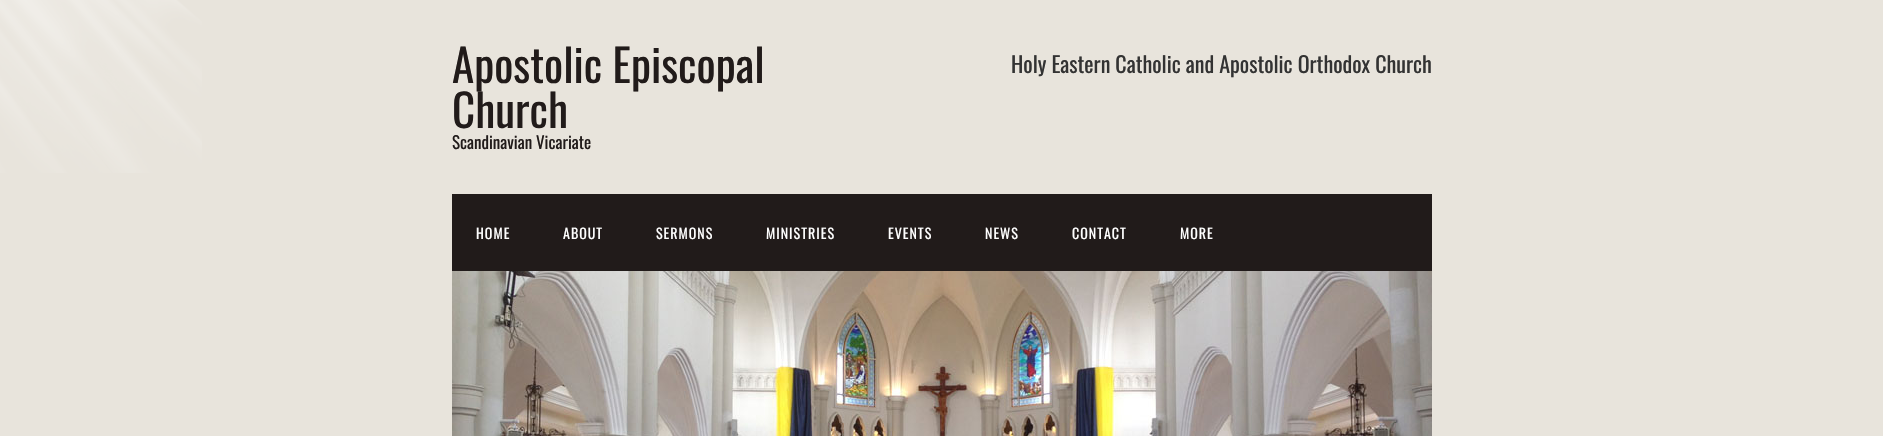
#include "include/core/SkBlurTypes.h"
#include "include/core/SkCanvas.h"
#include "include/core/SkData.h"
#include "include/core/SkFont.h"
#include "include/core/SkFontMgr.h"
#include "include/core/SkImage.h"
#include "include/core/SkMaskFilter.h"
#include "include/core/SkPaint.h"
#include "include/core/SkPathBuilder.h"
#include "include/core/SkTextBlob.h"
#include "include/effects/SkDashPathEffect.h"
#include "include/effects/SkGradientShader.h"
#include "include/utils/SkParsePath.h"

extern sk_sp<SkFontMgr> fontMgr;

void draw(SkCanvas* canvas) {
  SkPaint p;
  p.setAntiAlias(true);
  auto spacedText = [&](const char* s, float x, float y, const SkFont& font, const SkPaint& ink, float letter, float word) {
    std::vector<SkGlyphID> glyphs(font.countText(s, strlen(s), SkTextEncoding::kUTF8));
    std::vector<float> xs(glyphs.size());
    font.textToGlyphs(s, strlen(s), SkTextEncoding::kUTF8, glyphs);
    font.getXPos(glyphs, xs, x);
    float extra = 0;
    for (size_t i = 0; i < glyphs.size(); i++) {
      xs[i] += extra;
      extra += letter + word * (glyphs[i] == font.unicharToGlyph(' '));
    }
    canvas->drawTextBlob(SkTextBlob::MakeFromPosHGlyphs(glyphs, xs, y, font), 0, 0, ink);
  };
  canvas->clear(SkColorSetRGB(232, 228, 220));
  canvas->drawImageRect(SkImages::DeferredFromEncodedData(SkData::MakeFromFileName("images/1.png")), SkRect::MakeLTRB(0, 0, 202, 173), SkSamplingOptions());
  p.setColor(SkColorSetRGB(33, 27, 26));
  canvas->drawRect(SkRect::MakeLTRB(452, 194, 1432, 271), p);
  canvas->drawImageRect(SkImages::DeferredFromEncodedData(SkData::MakeFromFileName("images/2.png")), SkRect::MakeLTRB(452, 271, 1432, 436), SkSamplingOptions());
  SkFont font1(fontMgr->matchFamilyStyle("Oswald", SkFontStyle::Normal()), 45);
  font1.setSubpixel(true);
  canvas->drawString("Apostolic Episcopal", 452, 83, font1, p);
  canvas->drawString("Church", 452, 128, font1, p);
  SkFont font2(fontMgr->matchFamilyStyle("Oswald", SkFontStyle::Normal()), 17);
  font2.setSubpixel(true);
  canvas->drawString("Scandinavian Vicariate", 452, 149, font2, p);
  SkFont font3(fontMgr->matchFamilyStyle("Oswald", SkFontStyle::Normal()), 22);
  font3.setSubpixel(true);
  p.setColor(SkColorSetRGB(51, 51, 51));
  canvas->drawString("Holy Eastern Catholic and Apostolic Orthodox Church", 1011, 73, font3, p);
  SkFont font4(fontMgr->matchFamilyStyle("Oswald", SkFontStyle::Normal()), 14);
  font4.setSubpixel(true);
  p.setColor(SK_ColorWHITE);
  spacedText("HOME", 476, 239, font4, p, 1, 0);
  spacedText("ABOUT", 563, 239, font4, p, 1, 0);
  spacedText("SERMONS", 656, 239, font4, p, 1, 0);
  spacedText("MINISTRIES", 766, 239, font4, p, 1, 0);
  spacedText("EVENTS", 888, 239, font4, p, 1, 0);
  spacedText("NEWS", 985, 239, font4, p, 1, 0);
  spacedText("CONTACT", 1072, 239, font4, p, 1, 0);
  spacedText("MORE", 1180, 239, font4, p, 1, 0);
}
